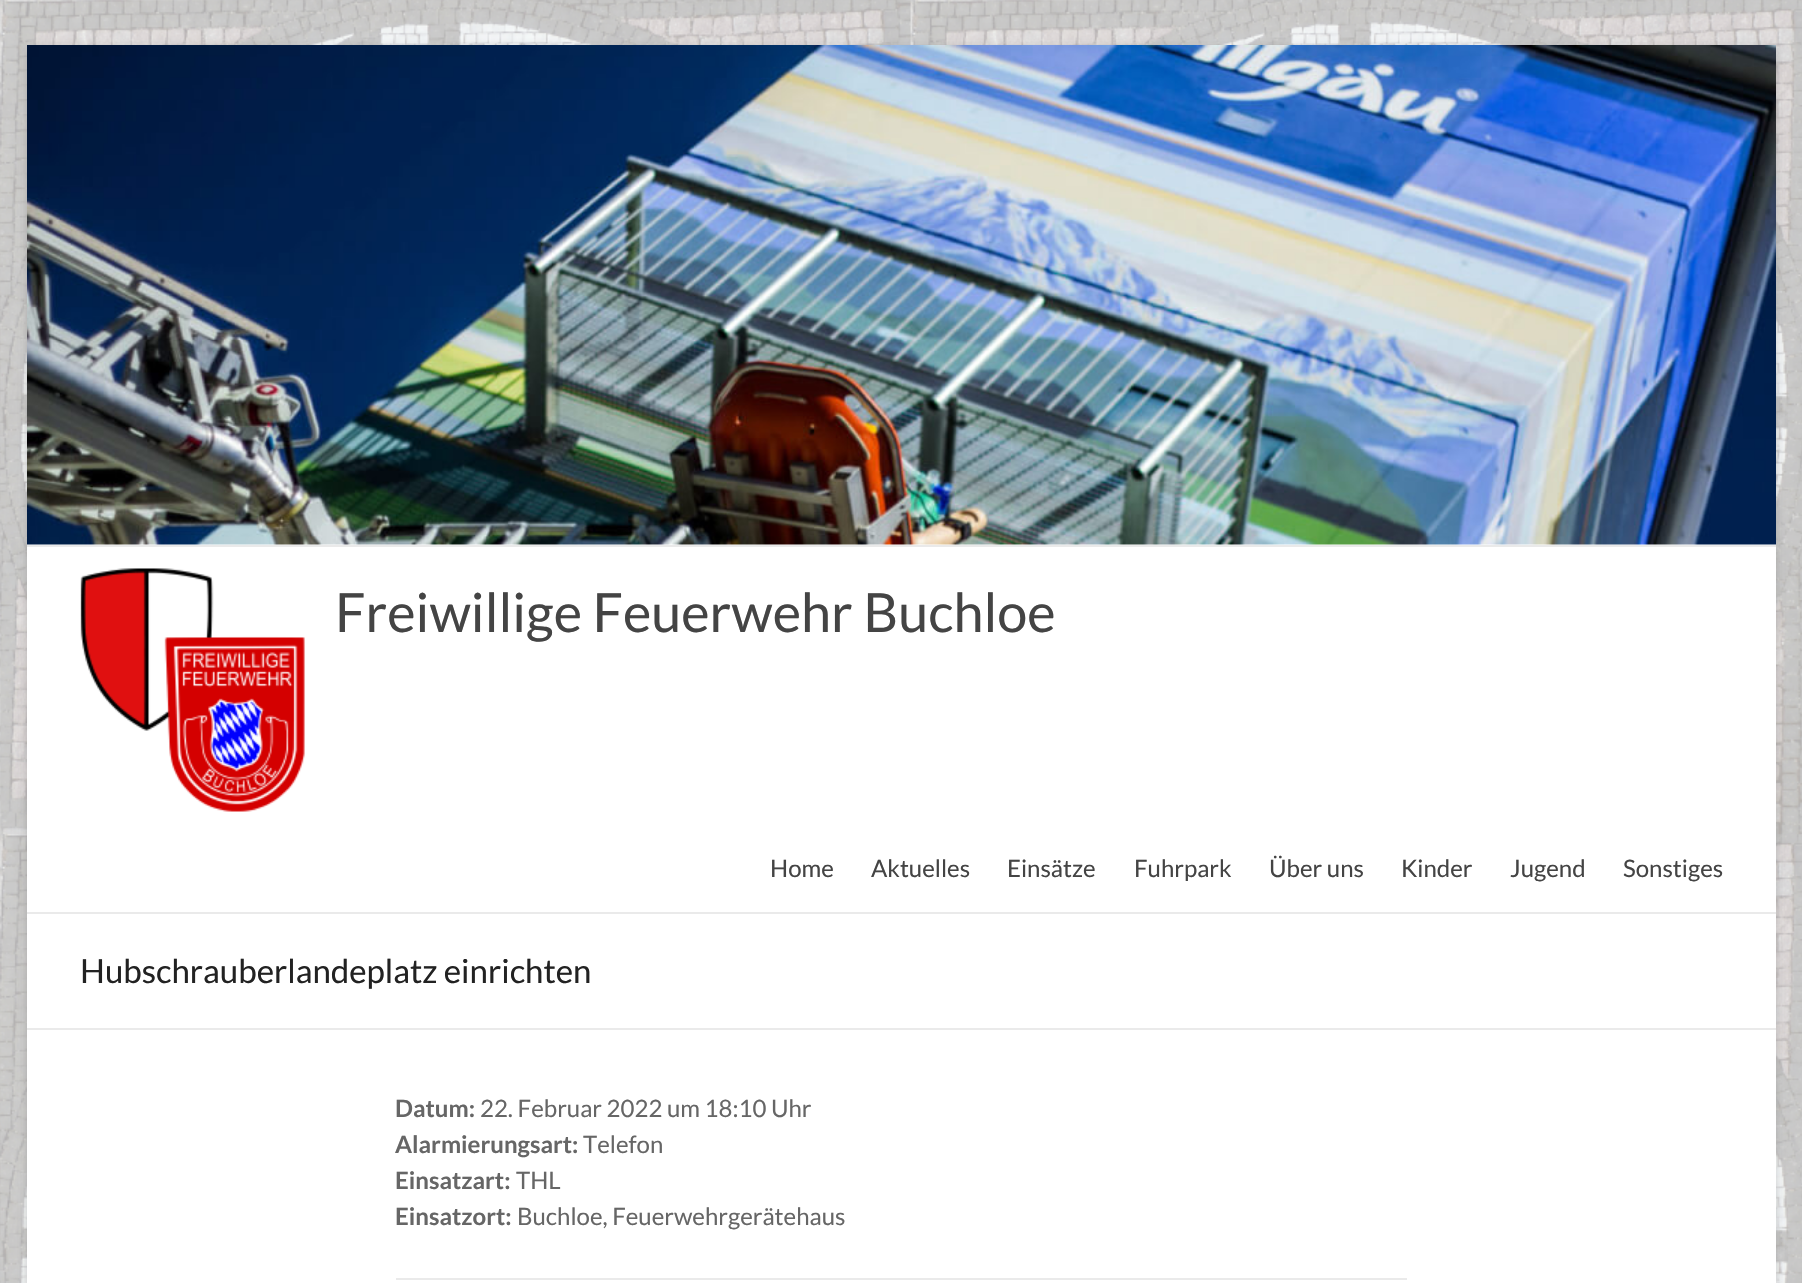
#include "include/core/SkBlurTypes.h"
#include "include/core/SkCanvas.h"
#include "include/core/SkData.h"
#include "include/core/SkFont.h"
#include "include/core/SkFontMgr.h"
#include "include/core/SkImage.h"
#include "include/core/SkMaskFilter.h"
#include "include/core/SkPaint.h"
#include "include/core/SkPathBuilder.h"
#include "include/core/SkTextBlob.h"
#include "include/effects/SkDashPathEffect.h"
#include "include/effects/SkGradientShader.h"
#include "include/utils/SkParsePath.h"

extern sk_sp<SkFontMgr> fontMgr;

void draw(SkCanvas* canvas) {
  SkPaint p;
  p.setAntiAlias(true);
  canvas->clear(SK_ColorWHITE);
  canvas->drawImageRect(SkImages::DeferredFromEncodedData(SkData::MakeFromFileName("images/1.png")), SkRect::MakeLTRB(0, 0, 1802, 1283), SkSamplingOptions());
  p.setColor(SkColorSetARGB(77, 100, 100, 100));
  p.setMaskFilter(SkMaskFilter::MakeBlur(kNormal_SkBlurStyle, 4.5f));
  canvas->drawRect(SkRect::MakeLTRB(27, 48, 1776, 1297), p);
  p.setMaskFilter(nullptr);
  p.setColor(SK_ColorWHITE);
  canvas->drawRect(SkRect::MakeLTRB(27, 544, 1776, 1283), p);
  canvas->drawImageRect(SkImages::DeferredFromEncodedData(SkData::MakeFromFileName("images/2.png")), SkRect::MakeLTRB(27, 45, 1776, 545), SkSamplingOptions());
  p.setColor(SkColorSetRGB(234, 234, 234));
  canvas->drawRect(SkRect::MakeLTRB(27, 545, 1776, 547), p);
  canvas->drawRect(SkRect::MakeLTRB(27, 912, 1776, 914), p);
  canvas->drawImageRect(SkImages::DeferredFromEncodedData(SkData::MakeFromFileName("images/3.png")), SkRect::MakeLTRB(80, 568, 305, 812), SkSamplingOptions());
  canvas->drawRect(SkRect::MakeLTRB(27, 1028, 1776, 1030), p);
  canvas->drawRect(SkRect::MakeLTRB(396, 1278, 1407, 1280), p);
  SkFont font1(fontMgr->matchFamilyStyle("Lato", SkFontStyle::Normal()), 54);
  font1.setSubpixel(true);
  p.setColor(SkColorSetRGB(68, 68, 68));
  canvas->drawString("Freiwillige Feuerwehr Buchloe", 335, 632, font1, p);
  SkFont font2(fontMgr->matchFamilyStyle("Lato", SkFontStyle::Normal()), 24);
  font2.setSubpixel(true);
  canvas->drawString("Home", 770, 877, font2, p);
  canvas->drawString("Aktuelles", 871, 877, font2, p);
  canvas->drawString("Einsätze", 1007, 877, font2, p);
  canvas->drawString("Fuhrpark", 1134, 877, font2, p);
  canvas->drawString("Über uns", 1269, 877, font2, p);
  canvas->drawString("Kinder", 1401, 877, font2, p);
  canvas->drawString("Jugend", 1510, 877, font2, p);
  canvas->drawString("Sonstiges", 1623, 877, font2, p);
  SkFont font3(fontMgr->matchFamilyStyle("Lato", SkFontStyle::Normal()), 33);
  font3.setSubpixel(true);
  p.setColor(SkColorSetRGB(34, 34, 34));
  canvas->drawString("Hubschrauberlandeplatz einrichten", 80, 983, font3, p);
  SkFont font4(fontMgr->matchFamilyStyle("Lato", SkFontStyle::Bold()), 24);
  font4.setSubpixel(true);
  p.setColor(SkColorSetRGB(102, 102, 102));
  canvas->drawString("Datum:", 395, 1117, font4, p);
  canvas->drawString("22. Februar 2022 um 18:10 Uhr", 480, 1117, font2, p);
  canvas->drawString("Alarmierungsart:", 395, 1153, font4, p);
  canvas->drawString("Telefon", 583, 1153, font2, p);
  canvas->drawString("Einsatzart:", 395, 1189, font4, p);
  canvas->drawString("THL", 516, 1189, font2, p);
  canvas->drawString("Einsatzort:", 395, 1225, font4, p);
  canvas->drawString("Buchloe, Feuerwehrgerätehaus", 517, 1225, font2, p);
}
